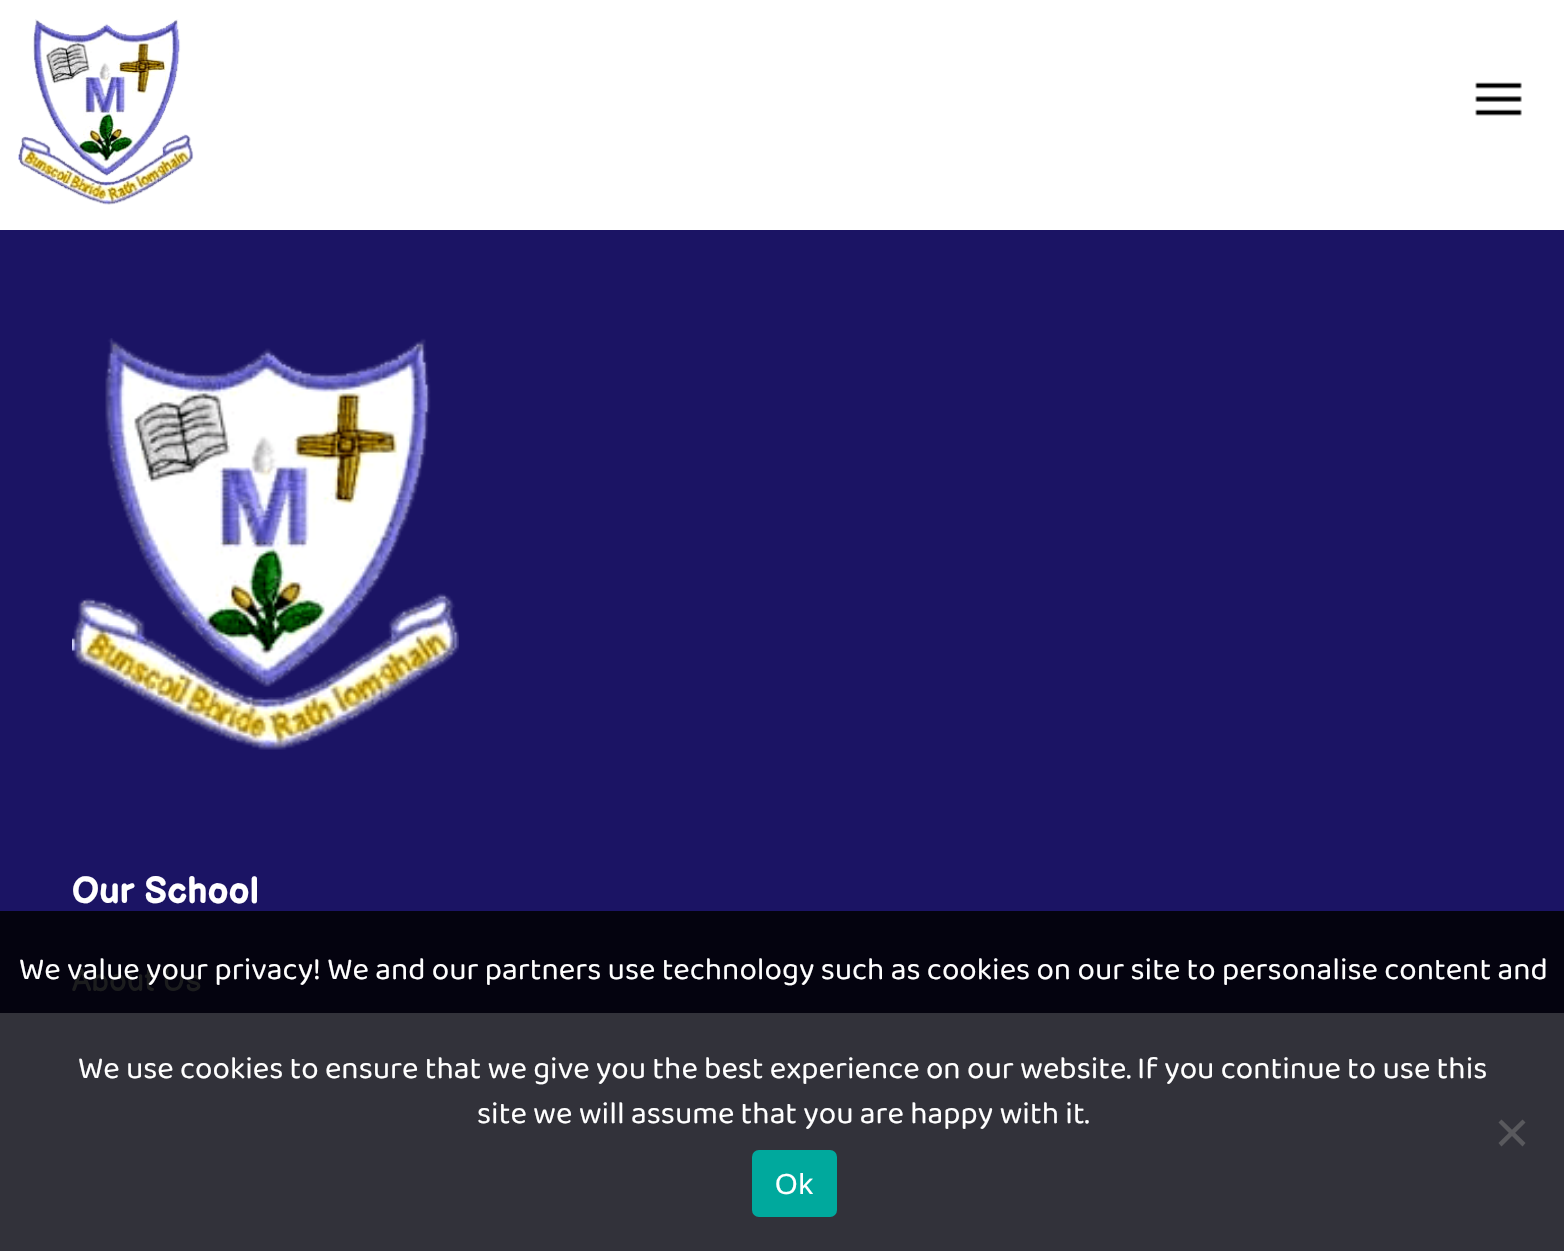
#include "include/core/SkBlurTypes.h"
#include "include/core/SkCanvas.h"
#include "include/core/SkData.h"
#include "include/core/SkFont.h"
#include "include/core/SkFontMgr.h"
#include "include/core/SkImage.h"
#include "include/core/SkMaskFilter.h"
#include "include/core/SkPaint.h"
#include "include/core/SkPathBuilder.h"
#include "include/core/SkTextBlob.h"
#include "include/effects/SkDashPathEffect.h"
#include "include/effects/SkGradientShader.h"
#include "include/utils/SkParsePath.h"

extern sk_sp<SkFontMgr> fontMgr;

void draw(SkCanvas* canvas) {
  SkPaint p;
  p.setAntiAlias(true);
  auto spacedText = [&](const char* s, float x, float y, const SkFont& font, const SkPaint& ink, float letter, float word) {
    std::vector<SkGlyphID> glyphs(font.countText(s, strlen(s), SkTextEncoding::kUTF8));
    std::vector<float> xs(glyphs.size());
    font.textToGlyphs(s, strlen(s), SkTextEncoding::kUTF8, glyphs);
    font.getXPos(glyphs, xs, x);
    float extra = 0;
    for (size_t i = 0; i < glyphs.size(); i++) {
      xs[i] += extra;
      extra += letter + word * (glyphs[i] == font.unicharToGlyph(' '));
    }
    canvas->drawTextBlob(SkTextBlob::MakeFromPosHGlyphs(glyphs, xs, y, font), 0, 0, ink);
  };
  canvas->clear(SK_ColorWHITE);
  canvas->drawImageRect(SkImages::DeferredFromEncodedData(SkData::MakeFromFileName("images/1.png")), SkRect::MakeLTRB(18, 19, 194, 205), SkSamplingOptions());
  canvas->drawImageRect(SkImages::DeferredFromEncodedData(SkData::MakeFromFileName("images/2.png")), SkRect::MakeLTRB(1475, 82, 1522, 116), SkSamplingOptions());
  p.setColor(SkColorSetRGB(27, 20, 100));
  canvas->drawRect(SkRect::MakeLTRB(0, 230, 1564, 911), p);
  p.setColor(SkColorSetRGB(4, 3, 15));
  canvas->drawRect(SkRect::MakeLTRB(0, 911, 1564, 1013), p);
  canvas->drawImageRect(SkImages::DeferredFromEncodedData(SkData::MakeFromFileName("images/3.png")), SkRect::MakeLTRB(72, 338, 459, 750), SkSamplingOptions());
  p.setColor(SkColorSetRGB(50, 50, 58));
  canvas->drawRect(SkRect::MakeLTRB(0, 1013, 1564, 1251), p);
  p.setColor(SkColorSetRGB(89, 89, 93));
  canvas->drawPath(SkPathBuilder().moveTo(1522.5f, 1119.5f).lineTo(1525.5f, 1122.5f).lineTo(1501.5f, 1146.5f).lineTo(1498.5f, 1143).close().detach(), p);
  canvas->drawPath(SkPathBuilder().moveTo(1498.5f, 1122.5f).lineTo(1501.5f, 1119.5f).lineTo(1525.5f, 1143).lineTo(1522.5f, 1146.5f).close().detach(), p);
  p.setColor(SkColorSetRGB(0, 169, 157));
  canvas->drawRoundRect(SkRect::MakeLTRB(752, 1150, 837, 1217), 7, 7, p);
  SkFont font1(fontMgr->matchFamilyStyle("Balsamiq Sans", SkFontStyle::Bold()), 37);
  font1.setSubpixel(true);
  p.setColor(SK_ColorWHITE);
  canvas->drawString("Our School", 72, 903, font1, p);
  SkFont font2(fontMgr->matchFamilyStyle("Balsamiq Sans", SkFontStyle::Normal()), 31.5f);
  font2.setSubpixel(true);
  p.setColor(SkColorSetRGB(28, 29, 30));
  canvas->drawString("About Us", 72, 991, font2, p);
  SkFont font3(fontMgr->matchFamilyStyle("Baloo 2", SkFontStyle::Normal()), 31.5f);
  font3.setSubpixel(true);
  p.setColor(SK_ColorWHITE);
  canvas->drawString("We value your privacy! We and our partners use technology such as cookies on our site to personalise content and", 19, 979, font3, p);
  canvas->drawString("We use cookies to ensure that we give you the best experience on our website. If you continue to use this", 78, 1078, font3, p);
  canvas->drawString("site we will assume that you are happy with it.", 477, 1123, font3, p);
  SkFont font4(fontMgr->matchFamilyStyle("Liberation Sans", SkFontStyle::Normal()), 29);
  font4.setSubpixel(true);
  spacedText("Ok", 775, 1194, font4, p, 1, 0);
}
